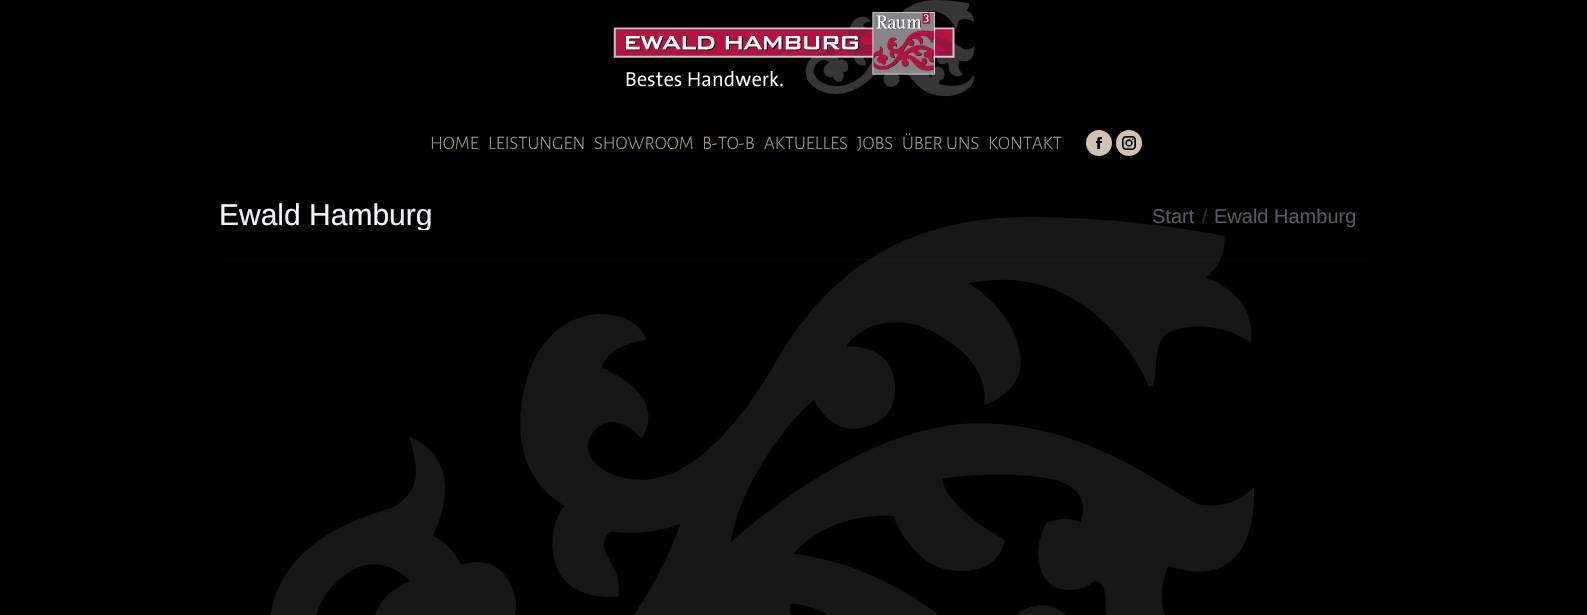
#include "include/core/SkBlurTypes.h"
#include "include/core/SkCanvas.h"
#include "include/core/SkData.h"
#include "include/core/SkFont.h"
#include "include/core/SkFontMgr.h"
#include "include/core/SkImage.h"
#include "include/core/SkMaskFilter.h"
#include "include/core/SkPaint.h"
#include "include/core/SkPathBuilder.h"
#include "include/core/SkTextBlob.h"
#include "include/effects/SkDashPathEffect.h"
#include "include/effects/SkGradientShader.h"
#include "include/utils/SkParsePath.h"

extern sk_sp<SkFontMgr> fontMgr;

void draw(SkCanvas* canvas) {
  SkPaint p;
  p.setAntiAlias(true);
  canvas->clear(SK_ColorBLACK);
  canvas->drawImageRect(SkImages::DeferredFromEncodedData(SkData::MakeFromFileName("images/1.png")), SkRect::MakeLTRB(270, 217, 1254, 615), SkSamplingOptions());
  canvas->drawImageRect(SkImages::DeferredFromEncodedData(SkData::MakeFromFileName("images/2.png")), SkRect::MakeLTRB(613, 0, 975, 97), SkSamplingOptions());
  p.setColor(SkColorSetRGB(211, 193, 178));
  canvas->drawCircle(1099, 143, 13, p);
  canvas->drawImageRect(SkImages::DeferredFromEncodedData(SkData::MakeFromFileName("images/3.png")), SkRect::MakeLTRB(1096, 137, 1102, 149), SkSamplingOptions());
  canvas->drawCircle(1129, 143, 13, p);
  canvas->drawImageRect(SkImages::DeferredFromEncodedData(SkData::MakeFromFileName("images/4.png")), SkRect::MakeLTRB(1122, 136, 1136, 150), SkSamplingOptions());
  p.setColor(SkColorSetARGB(28, 51, 51, 51));
  canvas->drawRect(SkRect::MakeLTRB(219, 259, 1369, 260), p);
  SkFont font1(fontMgr->matchFamilyStyle("Alegreya Sans", SkFontStyle(300, SkFontStyle::kNormal_Width, SkFontStyle::kUpright_Slant)), 19);
  font1.setSubpixel(true);
  p.setColor(SkColorSetRGB(174, 155, 147));
  canvas->drawString("HOME", 430, 149, font1, p);
  canvas->drawString("LEISTUNGEN", 488, 149, font1, p);
  canvas->drawString("SHOWROOM", 594, 149, font1, p);
  canvas->drawString("B-TO-B", 702, 149, font1, p);
  canvas->drawString("AKTUELLES", 764, 149, font1, p);
  canvas->drawString("JOBS", 857, 149, font1, p);
  canvas->drawString("ÜBER UNS", 902, 149, font1, p);
  canvas->drawString("KONTAKT", 988, 149, font1, p);
  canvas->save();
  canvas->clipRect(SkRect::MakeLTRB(219, 200, 432, 230));
  SkFont font2(fontMgr->matchFamilyStyle("Liberation Sans", SkFontStyle::Normal()), 30);
  font2.setSubpixel(true);
  p.setColor(SkColorSetRGB(241, 243, 246));
  canvas->drawString("Ewald Hamburg", 219, 225, font2, p);
  canvas->restore();
  SkFont font3(fontMgr->matchFamilyStyle("Liberation Sans", SkFontStyle::Normal()), 20);
  font3.setSubpixel(true);
  p.setColor(SkColorSetRGB(82, 91, 101));
  canvas->drawString("Start", 1152, 223, font3, p);
  p.setColor(SkColorSetRGB(41, 46, 51));
  canvas->drawString("/", 1202, 223, font3, p);
  p.setColor(SkColorSetRGB(82, 91, 101));
  canvas->drawString("Ewald Hamburg", 1214, 223, font3, p);
}
